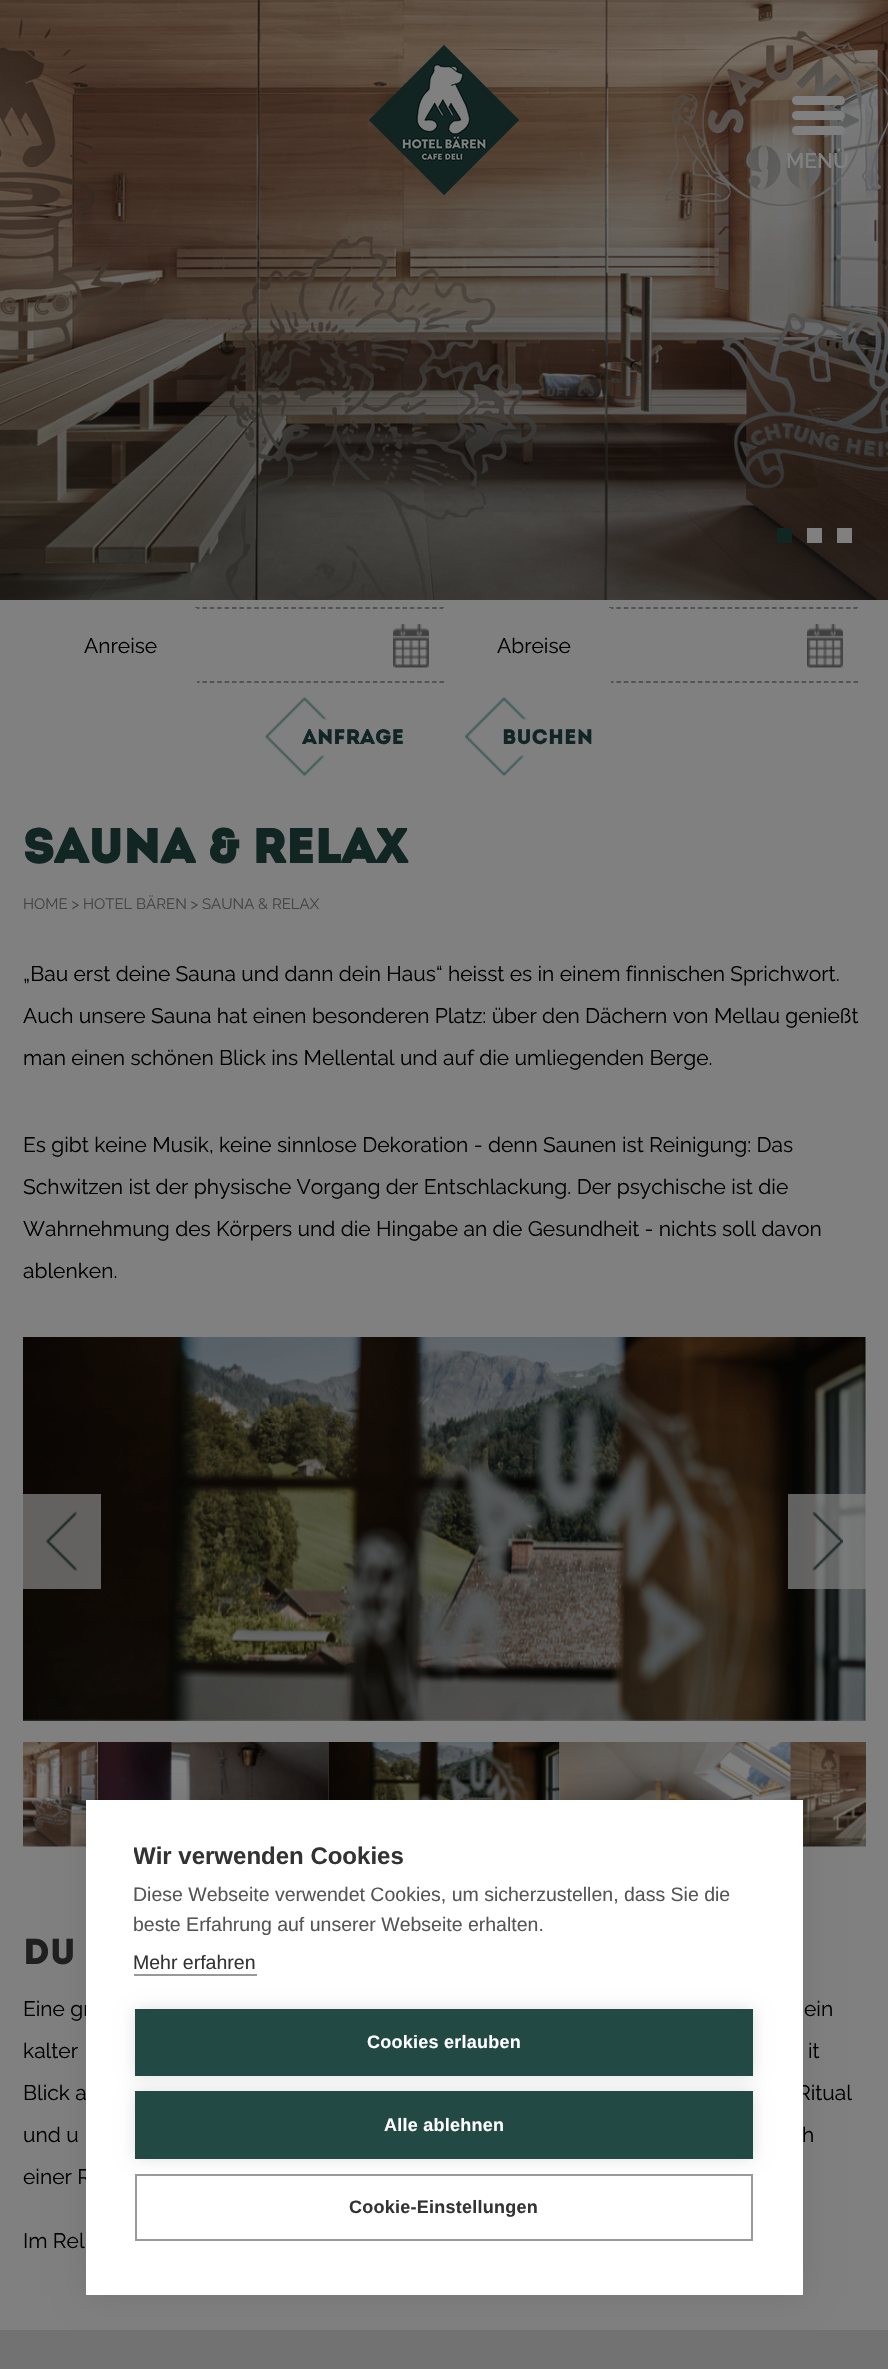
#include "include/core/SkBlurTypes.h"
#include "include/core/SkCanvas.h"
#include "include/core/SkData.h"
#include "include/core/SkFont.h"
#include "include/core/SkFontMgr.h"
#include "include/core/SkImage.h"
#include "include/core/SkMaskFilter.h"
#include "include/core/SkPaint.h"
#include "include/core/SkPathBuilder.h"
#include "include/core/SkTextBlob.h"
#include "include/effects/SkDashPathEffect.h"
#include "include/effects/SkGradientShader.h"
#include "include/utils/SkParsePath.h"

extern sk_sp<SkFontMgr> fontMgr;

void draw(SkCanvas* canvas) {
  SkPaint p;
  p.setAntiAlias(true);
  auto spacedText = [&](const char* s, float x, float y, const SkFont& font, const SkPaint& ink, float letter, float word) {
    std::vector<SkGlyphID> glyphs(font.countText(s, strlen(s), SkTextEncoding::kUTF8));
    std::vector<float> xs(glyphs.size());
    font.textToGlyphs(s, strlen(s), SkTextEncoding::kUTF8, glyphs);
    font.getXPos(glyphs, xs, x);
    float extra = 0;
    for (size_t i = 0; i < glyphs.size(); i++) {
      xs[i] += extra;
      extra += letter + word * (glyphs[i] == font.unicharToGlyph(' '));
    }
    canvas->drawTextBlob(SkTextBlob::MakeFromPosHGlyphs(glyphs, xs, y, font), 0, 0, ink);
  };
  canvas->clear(SkColorSetRGB(128, 128, 128));
  canvas->drawImageRect(SkImages::DeferredFromEncodedData(SkData::MakeFromFileName("images/1.png")), SkRect::MakeLTRB(0, 0, 888, 600), SkSamplingOptions());
  canvas->drawImageRect(SkImages::DeferredFromEncodedData(SkData::MakeFromFileName("images/3.png")), SkRect::MakeLTRB(0, 66, 888, 600), SkSamplingOptions());
  p.setColor(SkColorSetRGB(128, 128, 128));
  canvas->drawRoundRect(SkRect::MakeLTRB(792, 111, 845, 120), 4.5f, 4.5f, p);
  canvas->drawRoundRect(SkRect::MakeLTRB(792, 96, 845, 105), 4.5f, 4.5f, p);
  canvas->drawRoundRect(SkRect::MakeLTRB(792, 126, 845, 135), 4.5f, 4.5f, p);
  p.setColor(SkColorSetRGB(17, 37, 34));
  canvas->drawRect(SkRect::MakeLTRB(777, 528, 792, 543), p);
  p.setColor(SkColorSetRGB(128, 128, 128));
  canvas->drawRect(SkRect::MakeLTRB(807, 528, 822, 543), p);
  canvas->drawRect(SkRect::MakeLTRB(837, 528, 852, 543), p);
  canvas->drawImageRect(SkImages::DeferredFromEncodedData(SkData::MakeFromFileName("images/2.png")), SkRect::MakeLTRB(369, 45, 519, 195), SkSamplingOptions());
  p.setStyle(SkPaint::kStroke_Style);
  p.setStrokeWidth(1.5f);
  p.setColor(SkColorSetRGB(68, 68, 68));
  p.setPathEffect(SkDashPathEffect::Make({{4.5f, 2.91f}}, 0));
  canvas->drawPath(SkPathBuilder().moveTo(195, 608).lineTo(444, 608).detach(), p);
  p.setPathEffect(nullptr);
  p.setStyle(SkPaint::kFill_Style);
  p.setColor(SkColorSetRGB(128, 128, 128));
  canvas->drawRect(SkRect::MakeLTRB(443, 608, 444, 609), p);
  p.setStyle(SkPaint::kStroke_Style);
  p.setColor(SkColorSetRGB(68, 68, 68));
  p.setPathEffect(SkDashPathEffect::Make({{4.5f, 2.91f}}, 0));
  canvas->drawPath(SkPathBuilder().moveTo(195, 682).lineTo(444, 682).detach(), p);
  p.setPathEffect(nullptr);
  p.setStyle(SkPaint::kFill_Style);
  p.setColor(SkColorSetRGB(128, 128, 128));
  canvas->drawRect(SkRect::MakeLTRB(195, 608, 197, 683), p);
  canvas->drawImageRect(SkImages::DeferredFromEncodedData(SkData::MakeFromFileName("images/4.png")), SkRect::MakeLTRB(393, 624, 429, 668), SkSamplingOptions());
  p.setStyle(SkPaint::kStroke_Style);
  p.setColor(SkColorSetRGB(68, 68, 68));
  p.setPathEffect(SkDashPathEffect::Make({{4.5f, 2.91f}}, 0));
  canvas->drawPath(SkPathBuilder().moveTo(609, 608).lineTo(858, 608).detach(), p);
  p.setPathEffect(nullptr);
  p.setStyle(SkPaint::kFill_Style);
  p.setColor(SkColorSetRGB(128, 128, 128));
  canvas->drawRect(SkRect::MakeLTRB(857, 608, 858, 609), p);
  p.setStyle(SkPaint::kStroke_Style);
  p.setColor(SkColorSetRGB(68, 68, 68));
  p.setPathEffect(SkDashPathEffect::Make({{4.5f, 2.91f}}, 0));
  canvas->drawPath(SkPathBuilder().moveTo(609, 682).lineTo(858, 682).detach(), p);
  p.setPathEffect(nullptr);
  p.setStyle(SkPaint::kFill_Style);
  p.setColor(SkColorSetRGB(128, 128, 128));
  canvas->drawRect(SkRect::MakeLTRB(609, 608, 611, 683), p);
  canvas->drawImageRect(SkImages::DeferredFromEncodedData(SkData::MakeFromFileName("images/5.png")), SkRect::MakeLTRB(807, 624, 843, 668), SkSamplingOptions());
  canvas->drawImageRect(SkImages::DeferredFromEncodedData(SkData::MakeFromFileName("images/6.png")), SkRect::MakeLTRB(265, 697, 327, 776), SkSamplingOptions());
  canvas->drawImageRect(SkImages::DeferredFromEncodedData(SkData::MakeFromFileName("images/7.png")), SkRect::MakeLTRB(465, 697, 527, 776), SkSamplingOptions());
  canvas->drawImageRect(SkImages::DeferredFromEncodedData(SkData::MakeFromFileName("images/8.png")), SkRect::MakeLTRB(23, 1337, 866, 1721), SkSamplingOptions());
  p.setColor(SkColorSetARGB(191, 128, 128, 128));
  canvas->drawRect(SkRect::MakeLTRB(23, 1494, 101, 1589), p);
  canvas->drawImageRect(SkImages::DeferredFromEncodedData(SkData::MakeFromFileName("images/9.png")), SkRect::MakeLTRB(46, 1511, 77, 1571), SkSamplingOptions());
  canvas->drawRect(SkRect::MakeLTRB(788, 1494, 866, 1589), p);
  canvas->drawImageRect(SkImages::DeferredFromEncodedData(SkData::MakeFromFileName("images/10.png")), SkRect::MakeLTRB(812, 1511, 843, 1571), SkSamplingOptions());
  canvas->drawImageRect(SkImages::DeferredFromEncodedData(SkData::MakeFromFileName("images/11.png")), SkRect::MakeLTRB(23, 1742, 98, 1847), SkSamplingOptions());
  canvas->drawImageRect(SkImages::DeferredFromEncodedData(SkData::MakeFromFileName("images/12.png")), SkRect::MakeLTRB(98, 1742, 329, 1800), SkSamplingOptions());
  canvas->drawImageRect(SkImages::DeferredFromEncodedData(SkData::MakeFromFileName("images/13.png")), SkRect::MakeLTRB(328, 1742, 560, 1800), SkSamplingOptions());
  canvas->drawImageRect(SkImages::DeferredFromEncodedData(SkData::MakeFromFileName("images/14.png")), SkRect::MakeLTRB(559, 1742, 791, 1800), SkSamplingOptions());
  canvas->drawImageRect(SkImages::DeferredFromEncodedData(SkData::MakeFromFileName("images/15.png")), SkRect::MakeLTRB(790, 1742, 866, 1847), SkSamplingOptions());
  p.setColor(SkColorSetRGB(114, 114, 114));
  canvas->drawRect(SkRect::MakeLTRB(0, 2330, 888, 2369), p);
  p.setColor(SkColorSetARGB(26, 0, 0, 0));
  p.setMaskFilter(SkMaskFilter::MakeBlur(kNormal_SkBlurStyle, 15));
  canvas->drawRect(SkRect::MakeLTRB(86, 1800, 803, 2295), p);
  p.setMaskFilter(nullptr);
  SkFont font1(fontMgr->matchFamilyStyle("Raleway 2", SkFontStyle(100, SkFontStyle::kNormal_Width, SkFontStyle::kUpright_Slant)), 21);
  font1.setSubpixel(true);
  p.setColor(SkColorSetRGB(128, 128, 128));
  canvas->drawString("MENÜ", 786, 168, font1, p);
  SkFont font2(fontMgr->matchFamilyStyle("Raleway", SkFontStyle(100, SkFontStyle::kNormal_Width, SkFontStyle::kUpright_Slant)), 21);
  font2.setSubpixel(true);
  p.setColor(SK_ColorBLACK);
  canvas->drawString("Anreise", 84, 653, font2, p);
  canvas->drawString("Abreise", 497, 653, font2, p);
  SkFont font3(fontMgr->matchFamilyStyle("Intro", SkFontStyle::Normal()), 21);
  font3.setSubpixel(true);
  p.setColor(SkColorSetRGB(17, 37, 34));
  canvas->drawString("ANFRAGE", 302, 744, font3, p);
  canvas->drawString("BUCHEN", 502, 744, font3, p);
  SkFont font4(fontMgr->matchFamilyStyle("Intro", SkFontStyle::Bold()), 48);
  font4.setSubpixel(true);
  canvas->drawString("Sauna & Relax", 23, 863, font4, p);
  SkFont font5(fontMgr->matchFamilyStyle("Raleway", SkFontStyle(100, SkFontStyle::kNormal_Width, SkFontStyle::kUpright_Slant)), 15);
  font5.setSubpixel(true);
  p.setColor(SkColorSetRGB(68, 68, 68));
  canvas->drawString("HOME > HOTEL BÄREN > SAUNA & RELAX", 23, 909, font5, p);
  p.setColor(SK_ColorBLACK);
  canvas->drawString("„Bau erst deine Sauna und dann dein Haus“ heisst es in einem finnischen Sprichwort.", 23, 981, font2, p);
  canvas->drawString("Auch unsere Sauna hat einen besonderen Platz: über den Dächern von Mellau genießt", 23, 1023, font2, p);
  canvas->drawString("man einen schönen Blick ins Mellental und auf die umliegenden Berge.", 23, 1065, font2, p);
  canvas->drawString("Es gibt keine Musik, keine sinnlose Dekoration - denn Saunen ist Reinigung: Das", 23, 1152, font2, p);
  canvas->drawString("Schwitzen ist der physische Vorgang der Entschlackung. Der psychische ist die", 23, 1194, font2, p);
  canvas->drawString("Wahrnehmung des Körpers und die Hingabe an die Gesundheit - nichts soll davon", 23, 1236, font2, p);
  canvas->drawString("ablenken.", 23, 1278, font2, p);
  SkFont font6(fontMgr->matchFamilyStyle("Intro", SkFontStyle::Normal()), 36);
  font6.setSubpixel(true);
  p.setColor(SkColorSetRGB(31, 31, 31));
  canvas->drawString("Du", 23, 1964, font6, p);
  p.setColor(SK_ColorBLACK);
  canvas->drawString("Eine gr", 23, 2016, font2, p);
  canvas->drawString("ein", 804, 2016, font2, p);
  canvas->drawString("kalter", 23, 2058, font2, p);
  canvas->drawString("it", 808, 2058, font2, p);
  canvas->drawString("Blick a", 23, 2100, font2, p);
  canvas->drawString("Ritual", 797, 2100, font2, p);
  canvas->drawString("und u", 23, 2142, font2, p);
  canvas->drawString("h", 802, 2142, font2, p);
  canvas->drawString("einer R", 23, 2184, font2, p);
  canvas->drawString("Im Rel", 23, 2248, font2, p);
  p.setColor(SK_ColorWHITE);
  canvas->drawRect(SkRect::MakeLTRB(86, 1800, 803, 2295), p);
  canvas->save();
  canvas->clipRect(SkRect::MakeLTRB(134, 1839, 755, 1979));
  SkFont font7(fontMgr->matchFamilyStyle("Liberation Sans", SkFontStyle::Bold()), 24);
  font7.setSubpixel(true);
  p.setColor(SkColorSetRGB(51, 51, 51));
  canvas->drawString("Wir verwenden Cookies", 133, 1864, font7, p);
  canvas->restore();
  SkFont font8(fontMgr->matchFamilyStyle("Liberation Sans", SkFontStyle::Normal()), 19.5f);
  font8.setSubpixel(true);
  p.setColor(SkColorSetRGB(85, 85, 85));
  canvas->drawString("Diese Webseite verwendet Cookies, um sicherzustellen, dass Sie die", 133, 1901, font8, p);
  canvas->drawString("beste Erfahrung auf unserer Webseite erhalten.", 133, 1931, font8, p);
  p.setColor(SkColorSetRGB(51, 51, 51));
  canvas->drawString("Mehr erfahren", 133, 1969, font8, p);
  p.setColor(SkColorSetRGB(153, 153, 153));
  canvas->drawRect(SkRect::MakeLTRB(134, 1974, 257, 1976), p);
  p.setColor(SkColorSetARGB(31, 0, 0, 0));
  p.setMaskFilter(SkMaskFilter::MakeBlur(kNormal_SkBlurStyle, 7.5f));
  canvas->drawRect(SkRect::MakeLTRB(135, 2009, 753, 2076), p);
  p.setMaskFilter(nullptr);
  p.setColor(SkColorSetRGB(34, 73, 68));
  canvas->drawRect(SkRect::MakeLTRB(135, 2009, 753, 2076), p);
  SkFont font9(fontMgr->matchFamilyStyle("Liberation Sans", SkFontStyle::Bold()), 18);
  font9.setSubpixel(true);
  p.setColor(SK_ColorWHITE);
  spacedText("Cookies erlauben", 367, 2048, font9, p, 0.25f, 0);
  p.setColor(SkColorSetARGB(31, 0, 0, 0));
  p.setMaskFilter(SkMaskFilter::MakeBlur(kNormal_SkBlurStyle, 7.5f));
  canvas->drawRect(SkRect::MakeLTRB(135, 2091, 753, 2159), p);
  p.setMaskFilter(nullptr);
  p.setColor(SkColorSetRGB(34, 73, 68));
  canvas->drawRect(SkRect::MakeLTRB(135, 2091, 753, 2159), p);
  p.setColor(SK_ColorWHITE);
  spacedText("Alle ablehnen", 384, 2131, font9, p, 0.25f, 0);
  p.setStyle(SkPaint::kStroke_Style);
  p.setStrokeWidth(2);
  p.setColor(SkColorSetRGB(153, 153, 153));
  canvas->drawRect(SkRect::MakeLTRB(136, 2175, 752, 2240), p);
  p.setStyle(SkPaint::kFill_Style);
  p.setColor(SkColorSetRGB(51, 51, 51));
  spacedText("Cookie-Einstellungen", 349, 2213, font9, p, 0.25f, 0);
}
